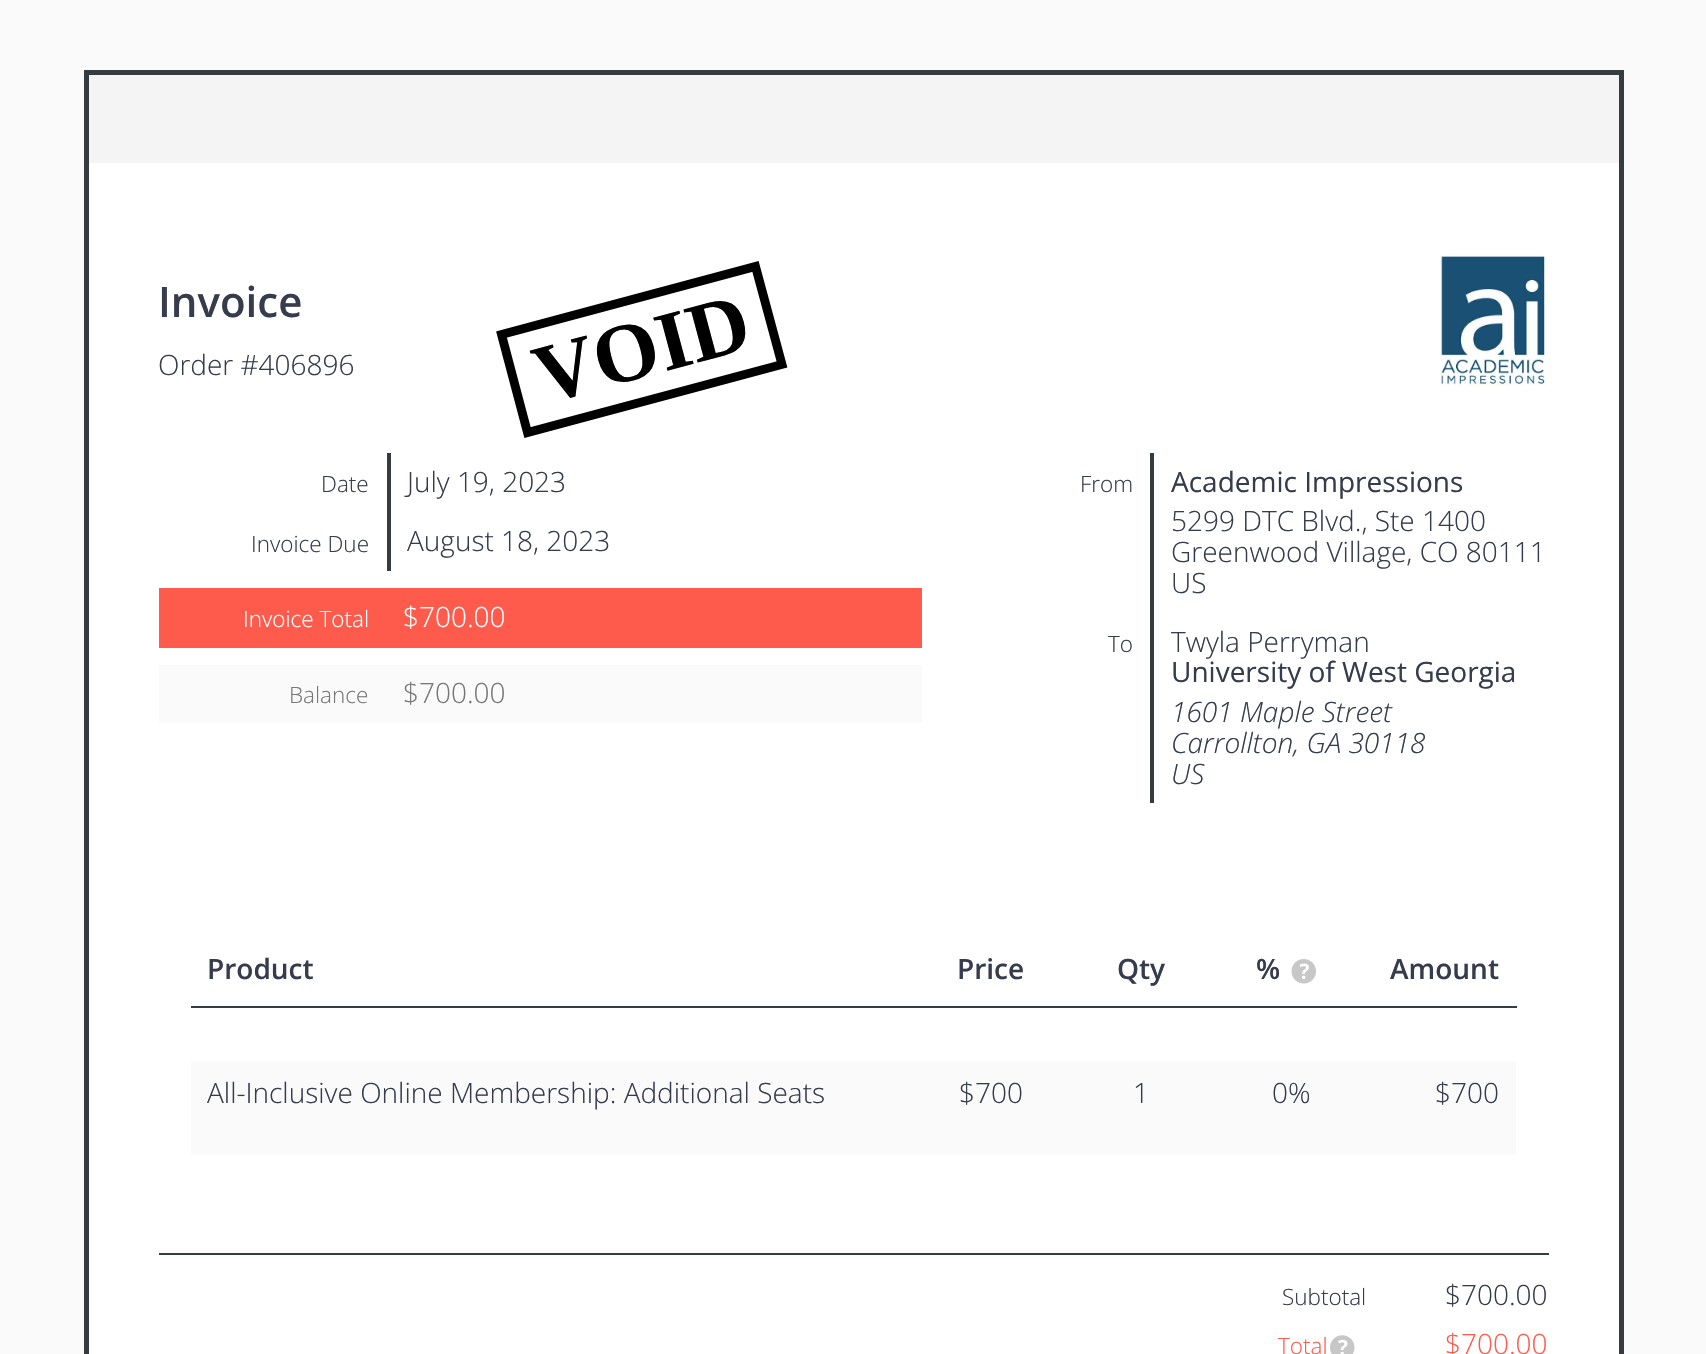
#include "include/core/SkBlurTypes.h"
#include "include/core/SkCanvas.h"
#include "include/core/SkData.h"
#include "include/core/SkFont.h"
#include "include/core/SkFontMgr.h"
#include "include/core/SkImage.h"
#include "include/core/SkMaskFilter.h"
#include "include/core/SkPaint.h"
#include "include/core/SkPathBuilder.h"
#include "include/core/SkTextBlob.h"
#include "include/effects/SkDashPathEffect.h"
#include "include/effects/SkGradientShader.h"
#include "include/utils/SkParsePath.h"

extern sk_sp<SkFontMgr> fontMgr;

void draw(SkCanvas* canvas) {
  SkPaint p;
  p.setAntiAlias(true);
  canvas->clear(SkColorSetRGB(250, 250, 250));
  p.setColor(SkColorSetRGB(244, 244, 244));
  canvas->drawRect(SkRect::MakeLTRB(89, 75, 1619, 163), p);
  p.setColor(SkColorSetRGB(54, 59, 63));
  canvas->drawRect(SkRect::MakeLTRB(84, 70, 1624, 75), p);
  canvas->drawRect(SkRect::MakeLTRB(1619, 70, 1624, 163), p);
  canvas->drawRect(SkRect::MakeLTRB(84, 70, 89, 163), p);
  p.setColor(SK_ColorWHITE);
  canvas->drawRect(SkRect::MakeLTRB(89, 163, 1619, 1354), p);
  p.setColor(SkColorSetRGB(54, 59, 63));
  canvas->drawRect(SkRect::MakeLTRB(1619, 163, 1624, 1354), p);
  canvas->drawRect(SkRect::MakeLTRB(84, 163, 89, 1354), p);
  canvas->drawImageRect(SkImages::DeferredFromEncodedData(SkData::MakeFromFileName("images/1.png")), SkRect::MakeLTRB(1440, 254, 1547, 386), SkSamplingOptions());
  p.setStyle(SkPaint::kStroke_Style);
  p.setStrokeWidth(8.8f);
  p.setColor(SK_ColorBLACK);
  canvas->drawPath(SkPathBuilder().moveTo(501.5f, 334.5f).lineTo(755.5f, 266.5f).lineTo(782, 364.5f).lineTo(527.5f, 432.5f).close().detach(), p);
  p.setStyle(SkPaint::kFill_Style);
  p.setColor(SkColorSetRGB(54, 59, 63));
  canvas->drawRect(SkRect::MakeLTRB(387, 453, 391, 571), p);
  p.setColor(SkColorSetRGB(255, 91, 77));
  canvas->drawRect(SkRect::MakeLTRB(159, 588, 922, 648), p);
  p.setColor(SkColorSetRGB(250, 250, 250));
  canvas->drawRect(SkRect::MakeLTRB(159, 665, 922, 723), p);
  p.setColor(SkColorSetRGB(54, 59, 63));
  canvas->drawRect(SkRect::MakeLTRB(1150, 453, 1154, 803), p);
  canvas->drawRect(SkRect::MakeLTRB(191, 1006, 1517, 1008), p);
  canvas->drawImageRect(SkImages::DeferredFromEncodedData(SkData::MakeFromFileName("images/2.png")), SkRect::MakeLTRB(1291, 959, 1316, 984), SkSamplingOptions());
  p.setColor(SkColorSetRGB(250, 250, 250));
  canvas->drawRect(SkRect::MakeLTRB(191, 1061, 1516, 1155), p);
  p.setColor(SkColorSetRGB(54, 59, 63));
  canvas->drawRect(SkRect::MakeLTRB(159, 1253, 1549, 1255), p);
  canvas->drawImageRect(SkImages::DeferredFromEncodedData(SkData::MakeFromFileName("images/3.png")), SkRect::MakeLTRB(1330, 1335, 1355, 1354), SkSamplingOptions());
  SkFont font1(fontMgr->matchFamilyStyle("Open Sans", SkFontStyle(600, SkFontStyle::kNormal_Width, SkFontStyle::kUpright_Slant)), 42);
  font1.setSubpixel(true);
  p.setColor(SkColorSetRGB(54, 59, 77));
  canvas->drawString("Invoice", 158, 317, font1, p);
  SkFont font2(fontMgr->matchFamilyStyle("Open Sans", SkFontStyle(300, SkFontStyle::kNormal_Width, SkFontStyle::kUpright_Slant)), 28);
  font2.setSubpixel(true);
  canvas->drawString("Order #406896", 158, 375, font2, p);
  SkFont font3(fontMgr->matchFamilyStyle("Liberation Serif", SkFontStyle::Bold()), 84);
  font3.setSubpixel(true);
  p.setColor(SK_ColorBLACK);
  canvas->save();
  canvas->rotate(-15, 543, 404);
  canvas->drawString("VOID", 543, 404, font3, p);
  canvas->restore();
  SkFont font4(fontMgr->matchFamilyStyle("Open Sans", SkFontStyle(300, SkFontStyle::kNormal_Width, SkFontStyle::kUpright_Slant)), 22.5f);
  font4.setSubpixel(true);
  p.setColor(SkColorSetRGB(54, 59, 77));
  canvas->drawString("Date", 321, 492, font4, p);
  canvas->drawString("July 19, 2023", 407, 492, font2, p);
  canvas->drawString("Invoice Due", 251, 552, font4, p);
  canvas->drawString("August 18, 2023", 407, 551, font2, p);
  p.setColor(SK_ColorWHITE);
  canvas->drawString("Invoice Total", 243, 627, font4, p);
  canvas->drawString("$700.00", 403, 627, font2, p);
  p.setColor(SkColorSetRGB(119, 119, 119));
  canvas->drawString("Balance", 289, 703, font4, p);
  canvas->drawString("$700.00", 403, 703, font2, p);
  p.setColor(SkColorSetRGB(54, 59, 77));
  canvas->drawString("From", 1080, 492, font4, p);
  SkFont font5(fontMgr->matchFamilyStyle("Open Sans", SkFontStyle::Normal()), 28);
  font5.setSubpixel(true);
  canvas->drawString("Academic Impressions", 1171, 492, font5, p);
  canvas->drawString("5299 DTC Blvd., Ste 1400", 1171, 531, font2, p);
  canvas->drawString("Greenwood Village, CO 80111", 1171, 562, font2, p);
  canvas->drawString("US", 1171, 593, font2, p);
  canvas->drawString("To", 1108, 652, font4, p);
  canvas->drawString("Twyla Perryman", 1171, 652, font2, p);
  canvas->drawString("University of West Georgia", 1171, 682, font5, p);
  SkFont font6(fontMgr->matchFamilyStyle("Open Sans", SkFontStyle(300, SkFontStyle::kNormal_Width, SkFontStyle::kItalic_Slant)), 28);
  font6.setSubpixel(true);
  canvas->drawString("1601 Maple Street", 1171, 722, font6, p);
  canvas->drawString("Carrollton, GA 30118", 1171, 753, font6, p);
  canvas->drawString("US", 1171, 784, font6, p);
  SkFont font7(fontMgr->matchFamilyStyle("Open Sans", SkFontStyle(600, SkFontStyle::kNormal_Width, SkFontStyle::kUpright_Slant)), 28);
  font7.setSubpixel(true);
  canvas->drawString("Product", 207, 979, font7, p);
  canvas->drawString("Price", 957, 979, font7, p);
  canvas->drawString("Qty", 1117, 979, font7, p);
  canvas->drawString("%", 1256, 979, font7, p);
  canvas->drawString("Amount", 1390, 979, font7, p);
  canvas->drawString("All-Inclusive Online Membership: Additional Seats", 207, 1103, font2, p);
  canvas->drawString("$700", 959, 1103, font2, p);
  canvas->drawString("1", 1133, 1103, font2, p);
  canvas->drawString("0%", 1272, 1103, font2, p);
  canvas->drawString("$700", 1435, 1103, font2, p);
  canvas->drawString("Subtotal", 1282, 1305, font4, p);
  canvas->drawString("$700.00", 1445, 1305, font2, p);
  p.setColor(SkColorSetRGB(255, 91, 77));
  canvas->drawString("Total", 1278, 1354, font4, p);
  canvas->drawString("$700.00", 1445, 1354, font2, p);
}
